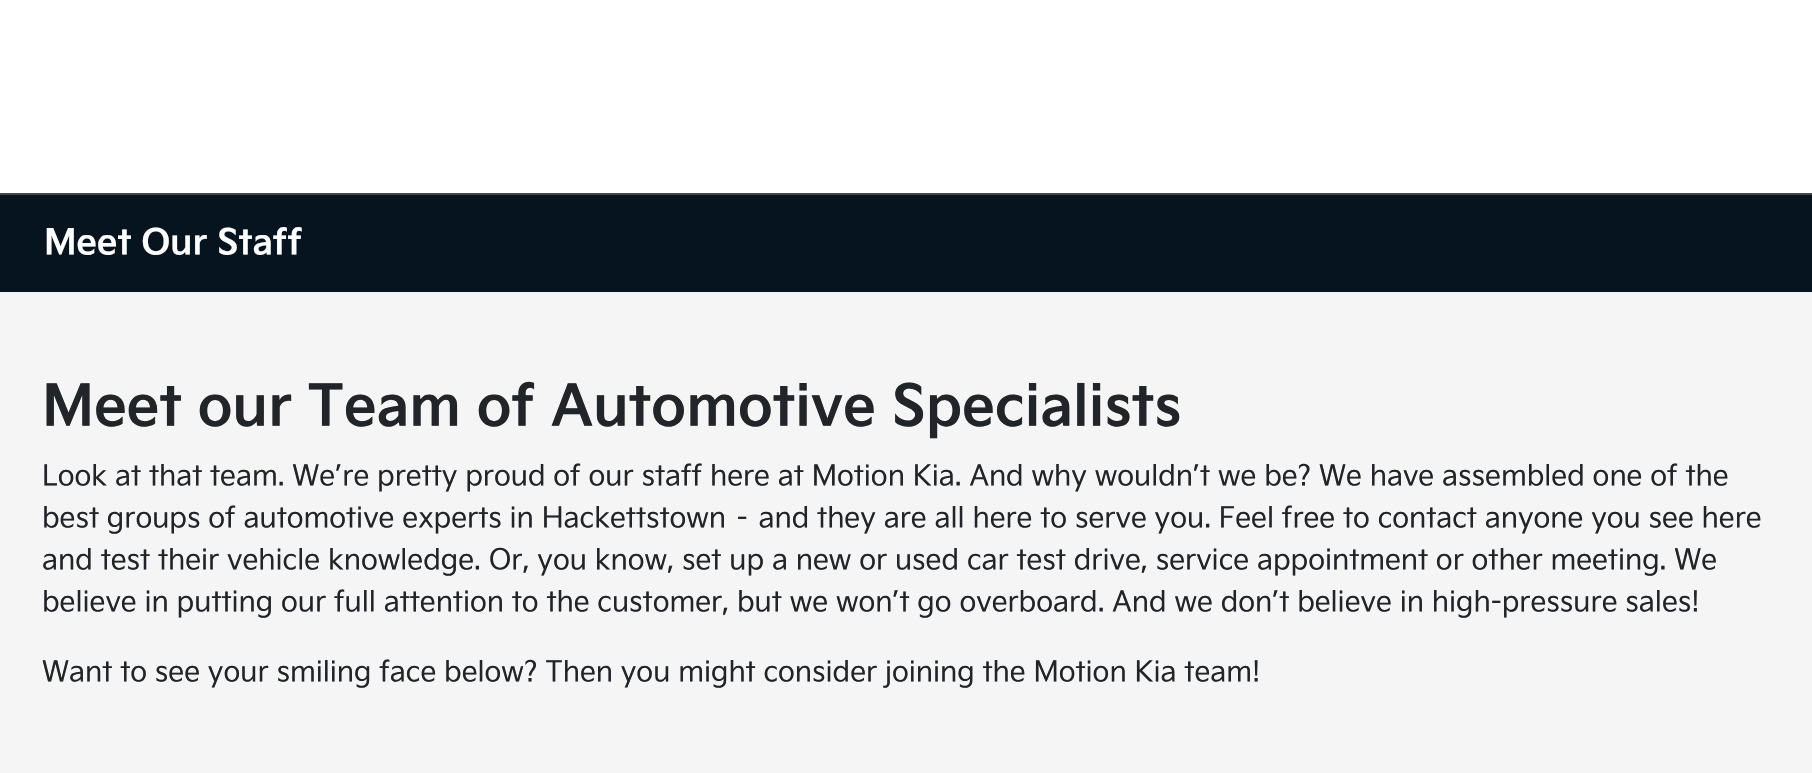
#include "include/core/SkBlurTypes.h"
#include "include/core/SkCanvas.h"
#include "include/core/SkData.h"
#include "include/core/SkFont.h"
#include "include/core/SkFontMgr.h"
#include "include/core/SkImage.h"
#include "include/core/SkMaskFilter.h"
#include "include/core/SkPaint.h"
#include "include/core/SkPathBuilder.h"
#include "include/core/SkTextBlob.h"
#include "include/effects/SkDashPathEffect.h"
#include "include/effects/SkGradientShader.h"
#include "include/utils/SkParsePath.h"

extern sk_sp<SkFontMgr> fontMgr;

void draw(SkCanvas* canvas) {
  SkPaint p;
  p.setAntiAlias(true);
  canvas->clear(SK_ColorWHITE);
  p.setColor(SkColorSetRGB(245, 245, 245));
  canvas->drawRect(SkRect::MakeLTRB(0, 292, 1812, 773), p);
  p.setColor(SkColorSetRGB(5, 20, 31));
  canvas->drawRect(SkRect::MakeLTRB(0, 195, 1812, 292), p);
  p.setColor(SkColorSetRGB(72, 69, 69));
  canvas->drawRect(SkRect::MakeLTRB(0, 193, 1812, 195), p);
  SkFont font1(fontMgr->matchFamilyStyle("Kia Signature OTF", SkFontStyle::Bold()), 35);
  font1.setSubpixel(true);
  p.setColor(SK_ColorWHITE);
  canvas->drawString("Meet Our Staff", 44, 254, font1, p);
  SkFont font2(fontMgr->matchFamilyStyle("Kia Signature OTF", SkFontStyle::Bold()), 56);
  font2.setSubpixel(true);
  p.setColor(SkColorSetRGB(33, 37, 41));
  canvas->drawString("Meet our Team of Automotive Specialists", 42, 425, font2, p);
  SkFont font3(fontMgr->matchFamilyStyle("Kia Signature OTF", SkFontStyle::Normal()), 28);
  font3.setSubpixel(true);
  canvas->drawString("Look at that team. We’re pretty proud of our staff here at Motion Kia. And why wouldn’t we be? We have assembled one of the", 42, 485, font3, p);
  canvas->drawString("best groups of automotive experts in Hackettstown – and they are all here to serve you. Feel free to contact anyone you see here", 42, 527, font3, p);
  canvas->drawString("and test their vehicle knowledge. Or, you know, set up a new or used car test drive, service appointment or other meeting. We", 42, 569, font3, p);
  canvas->drawString("believe in putting our full attention to the customer, but we won’t go overboard. And we don’t believe in high-pressure sales!", 42, 611, font3, p);
  canvas->drawString("Want to see your smiling face below? Then you might consider joining the Motion Kia team!", 42, 681, font3, p);
}
